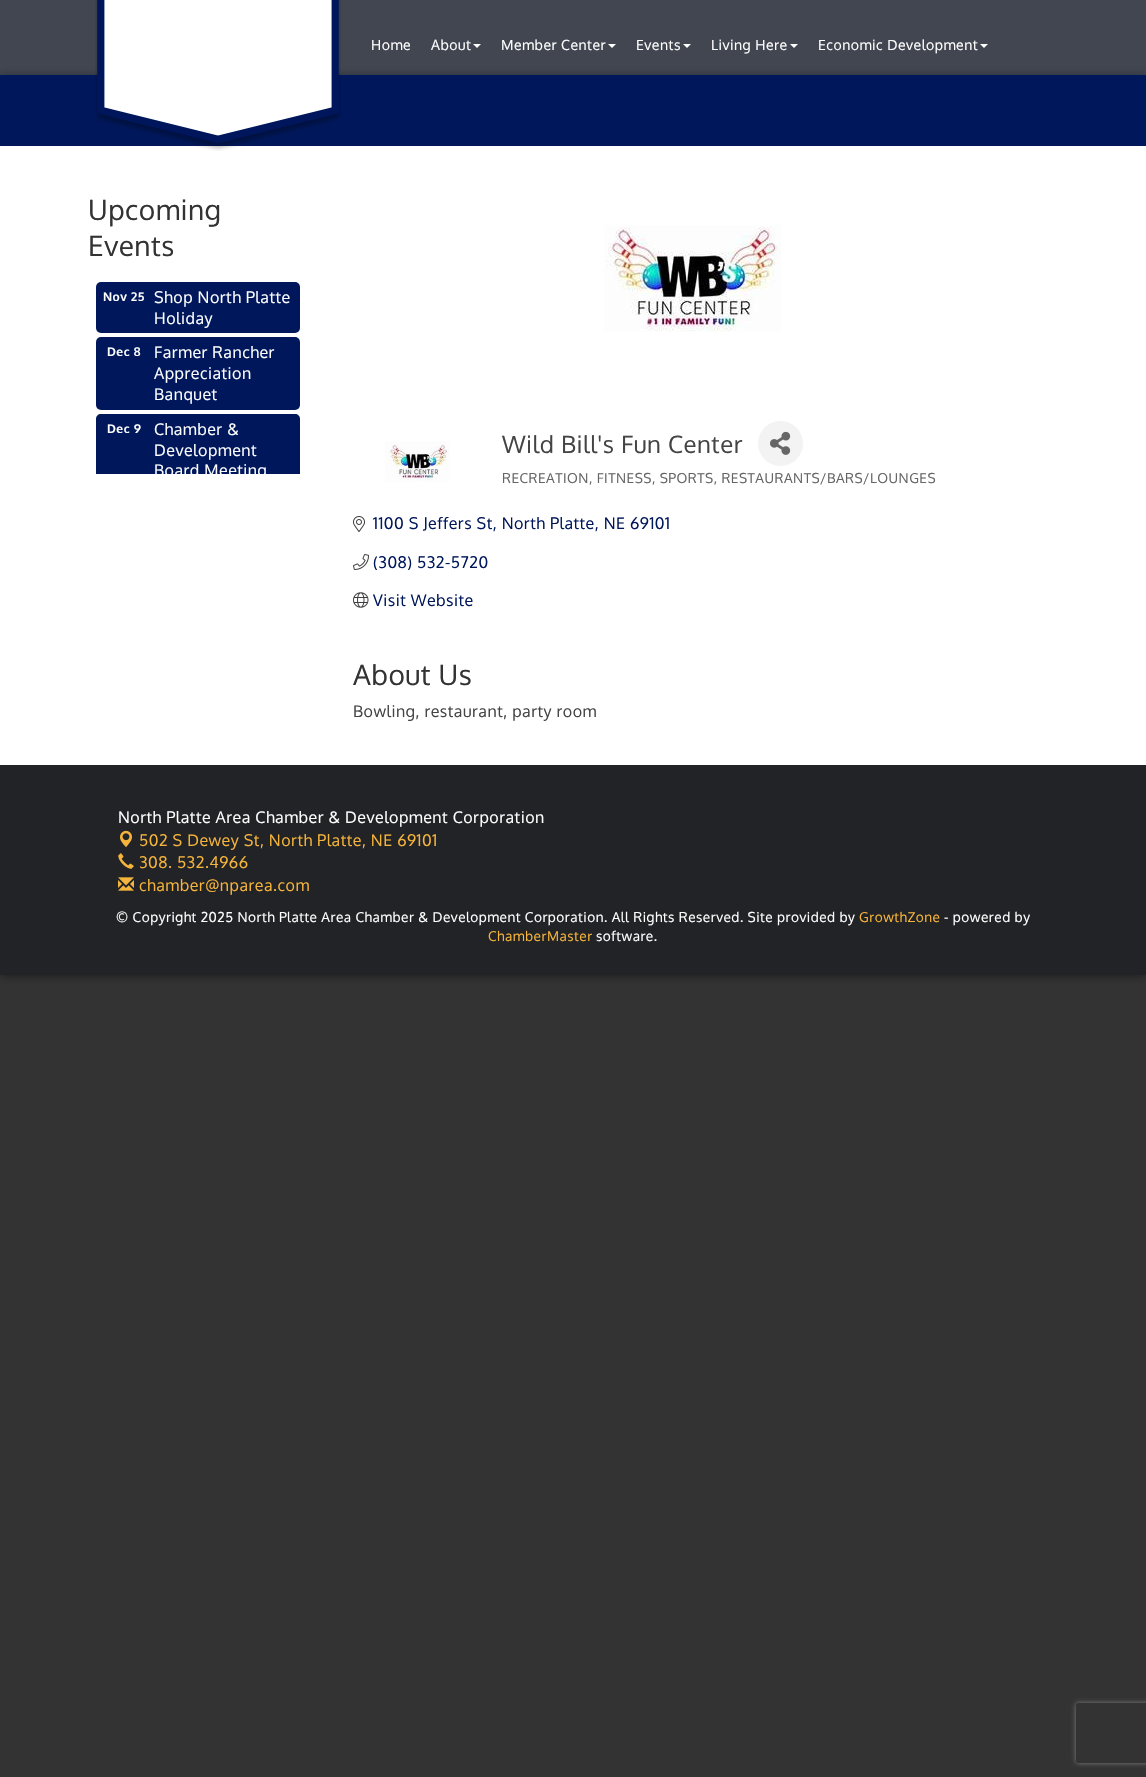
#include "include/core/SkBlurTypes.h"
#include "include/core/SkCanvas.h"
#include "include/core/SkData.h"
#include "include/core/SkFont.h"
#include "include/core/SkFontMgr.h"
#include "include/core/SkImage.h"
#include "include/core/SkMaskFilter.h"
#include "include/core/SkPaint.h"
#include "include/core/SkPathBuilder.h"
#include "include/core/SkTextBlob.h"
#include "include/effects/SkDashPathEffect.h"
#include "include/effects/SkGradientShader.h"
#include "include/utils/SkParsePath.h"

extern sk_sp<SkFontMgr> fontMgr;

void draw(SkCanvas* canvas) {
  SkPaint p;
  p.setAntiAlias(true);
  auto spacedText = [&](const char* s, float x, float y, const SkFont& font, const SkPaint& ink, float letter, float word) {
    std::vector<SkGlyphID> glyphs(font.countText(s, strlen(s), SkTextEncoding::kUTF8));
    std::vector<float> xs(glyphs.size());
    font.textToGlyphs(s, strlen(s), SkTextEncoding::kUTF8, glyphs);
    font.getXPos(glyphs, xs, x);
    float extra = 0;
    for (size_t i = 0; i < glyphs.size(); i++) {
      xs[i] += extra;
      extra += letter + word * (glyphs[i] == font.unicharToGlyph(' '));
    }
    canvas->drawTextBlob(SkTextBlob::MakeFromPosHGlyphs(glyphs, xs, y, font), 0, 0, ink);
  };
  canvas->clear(SkColorSetRGB(51, 51, 51));
  p.setColor(SkColorSetRGB(243, 243, 243));
  canvas->drawRect(SkRect::MakeLTRB(0, 0, 1146, 75), p);
  canvas->save();
  canvas->clipRect(SkRect::MakeLTRB(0, 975, 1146, 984));
  p.setColor(SkColorSetARGB(128, 0, 0, 0));
  p.setMaskFilter(SkMaskFilter::MakeBlur(kNormal_SkBlurStyle, 5));
  canvas->drawRect(SkRect::MakeLTRB(0, 0, 1146, 975), p);
  p.setMaskFilter(nullptr);
  canvas->restore();
  p.setColor(SkColorSetARGB(77, 0, 0, 0));
  p.setMaskFilter(SkMaskFilter::MakeBlur(kNormal_SkBlurStyle, 3));
  canvas->drawRect(SkRect::MakeLTRB(0, 73, 1146, 144), p);
  p.setMaskFilter(nullptr);
  p.setColor(SkColorSetARGB(204, 21, 26, 40));
  canvas->drawRect(SkRect::MakeLTRB(0, 0, 1146, 75), p);
  p.setColor(SkColorSetRGB(0, 23, 91));
  canvas->drawRect(SkRect::MakeLTRB(0, 75, 1146, 146), p);
  p.setColor(SK_ColorWHITE);
  canvas->drawRect(SkRect::MakeLTRB(0, 146, 1146, 765), p);
  canvas->drawImageRect(SkImages::DeferredFromEncodedData(SkData::MakeFromFileName("images/1.png")), SkRect::MakeLTRB(95, 0, 341, 151), SkSamplingOptions());
  canvas->drawPath(SkPathBuilder().moveTo(473, 44).lineTo(481, 44).lineTo(477, 48).close().detach(), p);
  canvas->drawPath(SkPathBuilder().moveTo(608, 44).lineTo(616, 44).lineTo(612, 48).close().detach(), p);
  canvas->drawPath(SkPathBuilder().moveTo(683, 44).lineTo(691, 44).lineTo(687, 48).close().detach(), p);
  canvas->drawPath(SkPathBuilder().moveTo(790, 44).lineTo(798, 44).lineTo(794, 48).close().detach(), p);
  canvas->drawPath(SkPathBuilder().moveTo(980, 44).lineTo(988, 44).lineTo(984, 48).close().detach(), p);
  p.setColor(SkColorSetRGB(0, 23, 91));
  canvas->drawRoundRect(SkRect::MakeLTRB(96, 282, 300, 333), 5, 5, p);
  canvas->drawRoundRect(SkRect::MakeLTRB(96, 337, 300, 410), 5, 5, p);
  canvas->drawPath(SkPathBuilder().moveTo(101, 414).lineTo(295, 414).cubicTo(298, 414, 300, 416, 300, 419).lineTo(300, 474).lineTo(96, 474).lineTo(96, 419).cubicTo(96, 416, 98, 414, 101, 414).close().detach(), p);
  canvas->drawImageRect(SkImages::DeferredFromEncodedData(SkData::MakeFromFileName("images/2.png")), SkRect::MakeLTRB(604, 225, 781, 332), SkSamplingOptions());
  canvas->drawImageRect(SkImages::DeferredFromEncodedData(SkData::MakeFromFileName("images/3.png")), SkRect::MakeLTRB(385, 441, 450, 482), SkSamplingOptions());
  p.setColor(SkColorSetRGB(243, 243, 243));
  canvas->drawCircle(780.5f, 443.5f, 22.5f, p);
  canvas->drawImageRect(SkImages::DeferredFromEncodedData(SkData::MakeFromFileName("images/4.png")), SkRect::MakeLTRB(770, 431, 791, 455), SkSamplingOptions());
  canvas->drawImageRect(SkImages::DeferredFromEncodedData(SkData::MakeFromFileName("images/5.png")), SkRect::MakeLTRB(353, 516, 365, 532), SkSamplingOptions());
  canvas->drawImageRect(SkImages::DeferredFromEncodedData(SkData::MakeFromFileName("images/6.png")), SkRect::MakeLTRB(353, 554, 369, 570), SkSamplingOptions());
  canvas->drawImageRect(SkImages::DeferredFromEncodedData(SkData::MakeFromFileName("images/7.png")), SkRect::MakeLTRB(353, 592, 369, 608), SkSamplingOptions());
  p.setColor(SkColorSetRGB(34, 35, 39));
  canvas->drawRect(SkRect::MakeLTRB(0, 765, 1146, 975), p);
  canvas->drawImageRect(SkImages::DeferredFromEncodedData(SkData::MakeFromFileName("images/8.png")), SkRect::MakeLTRB(120, 830, 132, 848), SkSamplingOptions());
  canvas->drawImageRect(SkImages::DeferredFromEncodedData(SkData::MakeFromFileName("images/9.png")), SkRect::MakeLTRB(118, 853, 134, 869), SkSamplingOptions());
  canvas->drawImageRect(SkImages::DeferredFromEncodedData(SkData::MakeFromFileName("images/10.png")), SkRect::MakeLTRB(118, 877, 134, 891), SkSamplingOptions());
  canvas->save();
  canvas->clipPath(SkPathBuilder(SkPathFillType::kEvenOdd).moveTo(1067, 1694).lineTo(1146, 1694).lineTo(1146, 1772).lineTo(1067, 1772).close().moveTo(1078, 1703).lineTo(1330, 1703).cubicTo(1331, 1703, 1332, 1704, 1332, 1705).lineTo(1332, 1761).cubicTo(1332, 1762, 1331, 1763, 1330, 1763).lineTo(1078, 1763).cubicTo(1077, 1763, 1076, 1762, 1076, 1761).lineTo(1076, 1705).cubicTo(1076, 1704, 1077, 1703, 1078, 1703).close().detach(), true);
  p.setColor(SkColorSetRGB(128, 128, 128));
  p.setMaskFilter(SkMaskFilter::MakeBlur(kNormal_SkBlurStyle, 2.5f));
  canvas->drawRoundRect(SkRect::MakeLTRB(1076, 1703, 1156, 1763), 2, 2, p);
  p.setMaskFilter(nullptr);
  canvas->restore();
  SkFont font1(fontMgr->matchFamilyStyle("Oxygen", SkFontStyle::Normal()), 14);
  font1.setSubpixel(true);
  p.setColor(SK_ColorWHITE);
  spacedText("Home", 371, 50, font1, p, 0.5f, 0);
  spacedText("About", 431, 50, font1, p, 0.5f, 0);
  spacedText("Member Center", 501, 50, font1, p, 0.5f, 0);
  spacedText("Events", 636, 50, font1, p, 0.5f, 0);
  spacedText("Living Here", 711, 50, font1, p, 0.5f, 0);
  spacedText("Economic Development", 818, 50, font1, p, 0.5f, 0);
  SkFont font2(fontMgr->matchFamilyStyle("Oxygen", SkFontStyle::Normal()), 28);
  font2.setSubpixel(true);
  p.setColor(SkColorSetRGB(51, 51, 51));
  spacedText("Upcoming", 88, 220, font2, p, 0.5f, 0);
  spacedText("Events", 88, 256, font2, p, 0.5f, 0);
  SkFont font3(fontMgr->matchFamilyStyle("Oxygen", SkFontStyle::Bold()), 12);
  font3.setSubpixel(true);
  p.setColor(SK_ColorWHITE);
  spacedText("Nov 25", 103, 301, font3, p, 0.5f, 0);
  SkFont font4(fontMgr->matchFamilyStyle("Oxygen", SkFontStyle::Normal()), 16);
  font4.setSubpixel(true);
  spacedText("Shop North Platte", 154, 303, font4, p, 0.5f, 0);
  spacedText("Holiday", 154, 324, font4, p, 0.5f, 0);
  spacedText("Dec 8", 107, 356, font3, p, 0.5f, 0);
  spacedText("Farmer Rancher", 154, 358, font4, p, 0.5f, 0);
  spacedText("Appreciation", 154, 379, font4, p, 0.5f, 0);
  spacedText("Banquet", 154, 400, font4, p, 0.5f, 0);
  spacedText("Dec 9", 107, 433, font3, p, 0.5f, 0);
  spacedText("Chamber &", 154, 435, font4, p, 0.5f, 0);
  spacedText("Development", 154, 456, font4, p, 0.5f, 0);
  canvas->save();
  canvas->clipRect(SkRect::MakeLTRB(96, 282, 300, 474));
  spacedText("Board Meeting", 154, 476, font4, p, 0.5f, 0);
  canvas->restore();
  SkFont font5(fontMgr->matchFamilyStyle("Oxygen", SkFontStyle::Normal()), 24);
  font5.setSubpixel(true);
  p.setColor(SkColorSetRGB(68, 68, 68));
  spacedText("Wild Bill's Fun Center", 502, 453, font5, p, 0.5f, 0);
  SkFont font6(fontMgr->matchFamilyStyle("Oxygen", SkFontStyle::Normal()), 13.6f);
  font6.setSubpixel(true);
  p.setColor(SkColorSetRGB(101, 101, 101));
  spacedText("RECREATION, FITNESS, SPORTS, RESTAURANTS/BARS/LOUNGES", 502, 483, font6, p, 0.5f, 0);
  p.setColor(SkColorSetRGB(0, 23, 91));
  spacedText("1100 S Jeffers St, North Platte, NE 69101", 373, 529, font4, p, 0.5f, 0);
  spacedText("(308) 532-5720", 373, 568, font4, p, 0.5f, 0);
  spacedText("Visit Website", 373, 606, font4, p, 0.5f, 0);
  p.setColor(SkColorSetRGB(51, 51, 51));
  spacedText("About Us", 353, 685, font2, p, 0.5f, 0);
  p.setColor(SkColorSetRGB(68, 68, 68));
  spacedText("Bowling, restaurant, party room", 353, 717, font4, p, 0.5f, 0);
  p.setColor(SK_ColorWHITE);
  spacedText("North Platte Area Chamber & Development Corporation", 118, 823, font4, p, 0.5f, 0);
  p.setColor(SkColorSetRGB(245, 180, 59));
  spacedText("502 S Dewey St, North Platte, NE 69101", 139, 846, font4, p, 0.5f, 0);
  spacedText("308. 532.4966", 139, 868, font4, p, 0.5f, 0);
  spacedText("chamber@nparea.com", 139, 891, font4, p, 0.5f, 0);
  p.setColor(SK_ColorWHITE);
  spacedText("© Copyright 2025 North Platte Area Chamber & Development Corporation. All Rights Reserved. Site provided by", 116, 922, font6, p, 0.5f, 0);
  p.setColor(SkColorSetRGB(245, 180, 59));
  spacedText("GrowthZone", 859, 922, font6, p, 0.5f, 0);
  p.setColor(SK_ColorWHITE);
  spacedText("- powered by", 944, 922, font6, p, 0.5f, 0);
  p.setColor(SkColorSetRGB(245, 180, 59));
  spacedText("ChamberMaster", 488, 941, font6, p, 0.5f, 0);
  p.setColor(SK_ColorWHITE);
  spacedText("software.", 596, 941, font6, p, 0.5f, 0);
}
